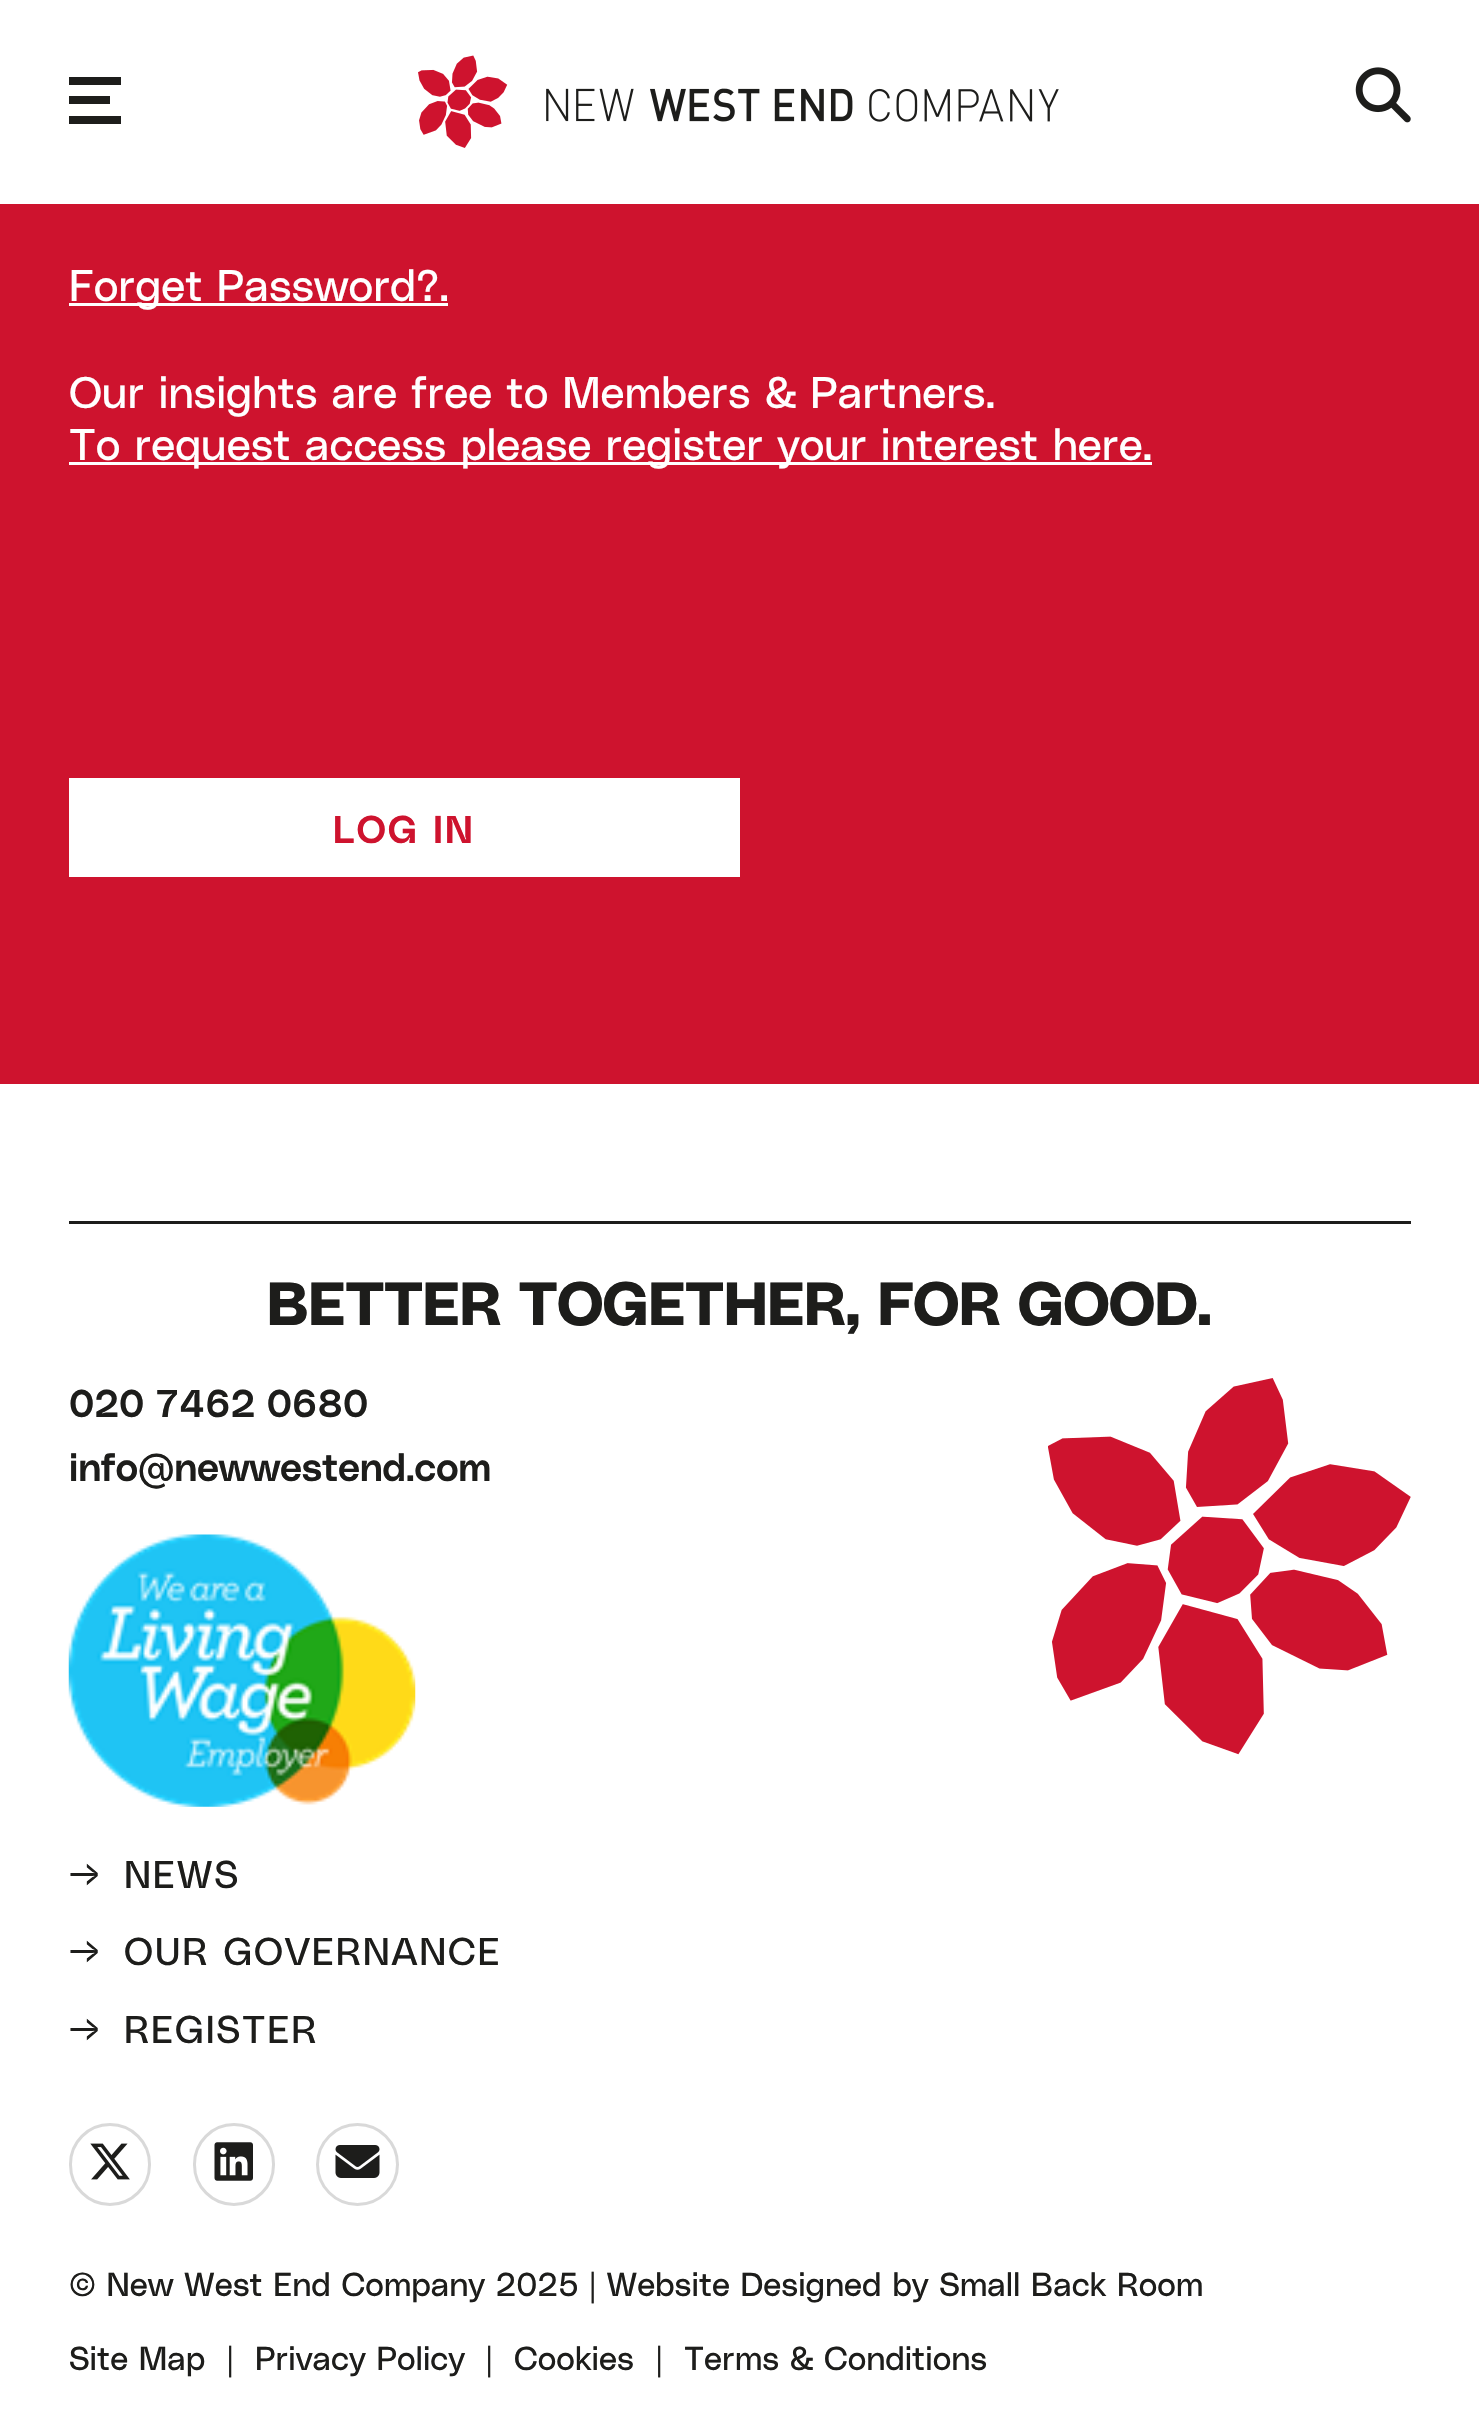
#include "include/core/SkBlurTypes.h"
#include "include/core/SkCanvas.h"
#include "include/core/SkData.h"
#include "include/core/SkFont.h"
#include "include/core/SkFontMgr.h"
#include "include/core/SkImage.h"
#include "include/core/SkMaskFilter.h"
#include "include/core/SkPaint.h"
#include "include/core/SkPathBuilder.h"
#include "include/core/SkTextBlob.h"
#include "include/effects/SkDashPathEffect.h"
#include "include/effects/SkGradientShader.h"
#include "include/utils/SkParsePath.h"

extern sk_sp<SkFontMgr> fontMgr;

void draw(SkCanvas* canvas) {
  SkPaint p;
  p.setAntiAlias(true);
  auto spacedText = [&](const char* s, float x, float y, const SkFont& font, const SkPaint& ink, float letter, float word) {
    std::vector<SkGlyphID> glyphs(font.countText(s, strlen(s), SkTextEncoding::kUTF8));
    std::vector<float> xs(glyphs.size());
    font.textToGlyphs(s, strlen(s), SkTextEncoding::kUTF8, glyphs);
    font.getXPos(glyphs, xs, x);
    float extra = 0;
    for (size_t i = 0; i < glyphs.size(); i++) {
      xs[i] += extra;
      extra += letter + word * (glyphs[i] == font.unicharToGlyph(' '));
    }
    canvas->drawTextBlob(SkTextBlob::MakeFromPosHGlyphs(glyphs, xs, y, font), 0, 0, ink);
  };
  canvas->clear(SK_ColorWHITE);
  p.setColor(SkColorSetRGB(29, 29, 27));
  canvas->drawRect(SkRect::MakeLTRB(69, 77, 121, 85), p);
  canvas->drawRect(SkRect::MakeLTRB(69, 96, 110, 104), p);
  canvas->drawRect(SkRect::MakeLTRB(69, 116, 121, 124), p);
  canvas->drawImageRect(SkImages::DeferredFromEncodedData(SkData::MakeFromFileName("images/1.png")), SkRect::MakeLTRB(418, 55, 1059, 148), SkSamplingOptions());
  canvas->drawImageRect(SkImages::DeferredFromEncodedData(SkData::MakeFromFileName("images/2.png")), SkRect::MakeLTRB(1355, 67, 1411, 123), SkSamplingOptions());
  p.setColor(SkColorSetRGB(206, 19, 46));
  canvas->drawRect(SkRect::MakeLTRB(0, 204, 1479, 1084), p);
  p.setColor(SK_ColorWHITE);
  canvas->drawRect(SkRect::MakeLTRB(69, 303, 448, 306), p);
  canvas->drawRect(SkRect::MakeLTRB(69, 462, 1152, 465), p);
  canvas->drawRect(SkRect::MakeLTRB(69, 778, 740, 877), p);
  p.setColor(SkColorSetRGB(29, 29, 27));
  canvas->drawRect(SkRect::MakeLTRB(69, 1221, 1411, 1224), p);
  canvas->drawImageRect(SkImages::DeferredFromEncodedData(SkData::MakeFromFileName("images/3.png")), SkRect::MakeLTRB(68, 1534, 416, 1807), SkSamplingOptions());
  canvas->drawImageRect(SkImages::DeferredFromEncodedData(SkData::MakeFromFileName("images/4.png")), SkRect::MakeLTRB(1048, 1378, 1411, 1755), SkSamplingOptions());
  p.setStyle(SkPaint::kStroke_Style);
  p.setStrokeWidth(3);
  p.setColor(SkColorSetRGB(217, 217, 217));
  canvas->drawRoundRect(SkRect::MakeLTRB(70.5f, 2124.5f, 149.5f, 2204.5f), 39.5f, 39.5f, p);
  canvas->drawImageRect(SkImages::DeferredFromEncodedData(SkData::MakeFromFileName("images/5.png")), SkRect::MakeLTRB(90, 2143, 130, 2180), SkSamplingOptions());
  canvas->drawRoundRect(SkRect::MakeLTRB(194.5f, 2124.5f, 273.5f, 2204.5f), 39.5f, 39.5f, p);
  canvas->drawImageRect(SkImages::DeferredFromEncodedData(SkData::MakeFromFileName("images/6.png")), SkRect::MakeLTRB(214, 2142, 253, 2181), SkSamplingOptions());
  canvas->drawCircle(357.5f, 2164.5f, 40, p);
  canvas->drawImageRect(SkImages::DeferredFromEncodedData(SkData::MakeFromFileName("images/7.png")), SkRect::MakeLTRB(335, 2145, 380, 2178), SkSamplingOptions());
  SkFont font1(fontMgr->matchFamilyStyle("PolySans", SkFontStyle::Normal()), 44);
  font1.setSubpixel(true);
  p.setStyle(SkPaint::kFill_Style);
  p.setColor(SK_ColorWHITE);
  canvas->drawString("Forget Password?.", 69, 301, font1, p);
  canvas->drawString("Our insights are free to Members & Partners.", 69, 408, font1, p);
  canvas->drawString("To request access please register your interest here.", 69, 460, font1, p);
  SkFont font2(fontMgr->matchFamilyStyle("PolySans", SkFontStyle(600, SkFontStyle::kNormal_Width, SkFontStyle::kUpright_Slant)), 38.5f);
  font2.setSubpixel(true);
  p.setColor(SkColorSetRGB(206, 19, 46));
  spacedText("LOG IN", 333, 843, font2, p, 2.25f, 0);
  SkFont font3(fontMgr->matchFamilyStyle("PolySans", SkFontStyle::Bold()), 60.5f);
  font3.setSubpixel(true);
  p.setColor(SkColorSetRGB(29, 29, 27));
  canvas->drawString("BETTER TOGETHER, FOR GOOD.", 267, 1325, font3, p);
  canvas->drawString("020 7462 0680", 69, 1417, font2, p);
  canvas->drawString("info@newwestend.com", 69, 1481, font2, p);
  spacedText("→", 69, 1888, font2, p, 1.75f, 0);
  SkFont font4(fontMgr->matchFamilyStyle("PolySans", SkFontStyle::Normal()), 38.5f);
  font4.setSubpixel(true);
  spacedText("NEWS", 124, 1888, font4, p, 1.75f, 0);
  spacedText("→", 69, 1965, font2, p, 1.75f, 0);
  spacedText("OUR GOVERNANCE", 124, 1965, font4, p, 1.75f, 0);
  spacedText("→", 69, 2043, font2, p, 1.75f, 0);
  spacedText("REGISTER", 124, 2043, font4, p, 1.75f, 0);
  SkFont font5(fontMgr->matchFamilyStyle("PolySans", SkFontStyle::Normal()), 33);
  font5.setSubpixel(true);
  canvas->drawString("© New West End Company 2025 | Website Designed by Small Back Room", 69, 2296, font5, p);
  canvas->drawString("Site Map", 69, 2370, font5, p);
  canvas->drawString("|", 227, 2370, font5, p);
  canvas->drawString("Privacy Policy", 255, 2370, font5, p);
  canvas->drawString("|", 486, 2370, font5, p);
  canvas->drawString("Cookies", 514, 2370, font5, p);
  canvas->drawString("|", 656, 2370, font5, p);
  canvas->drawString("Terms & Conditions", 684, 2370, font5, p);
}
